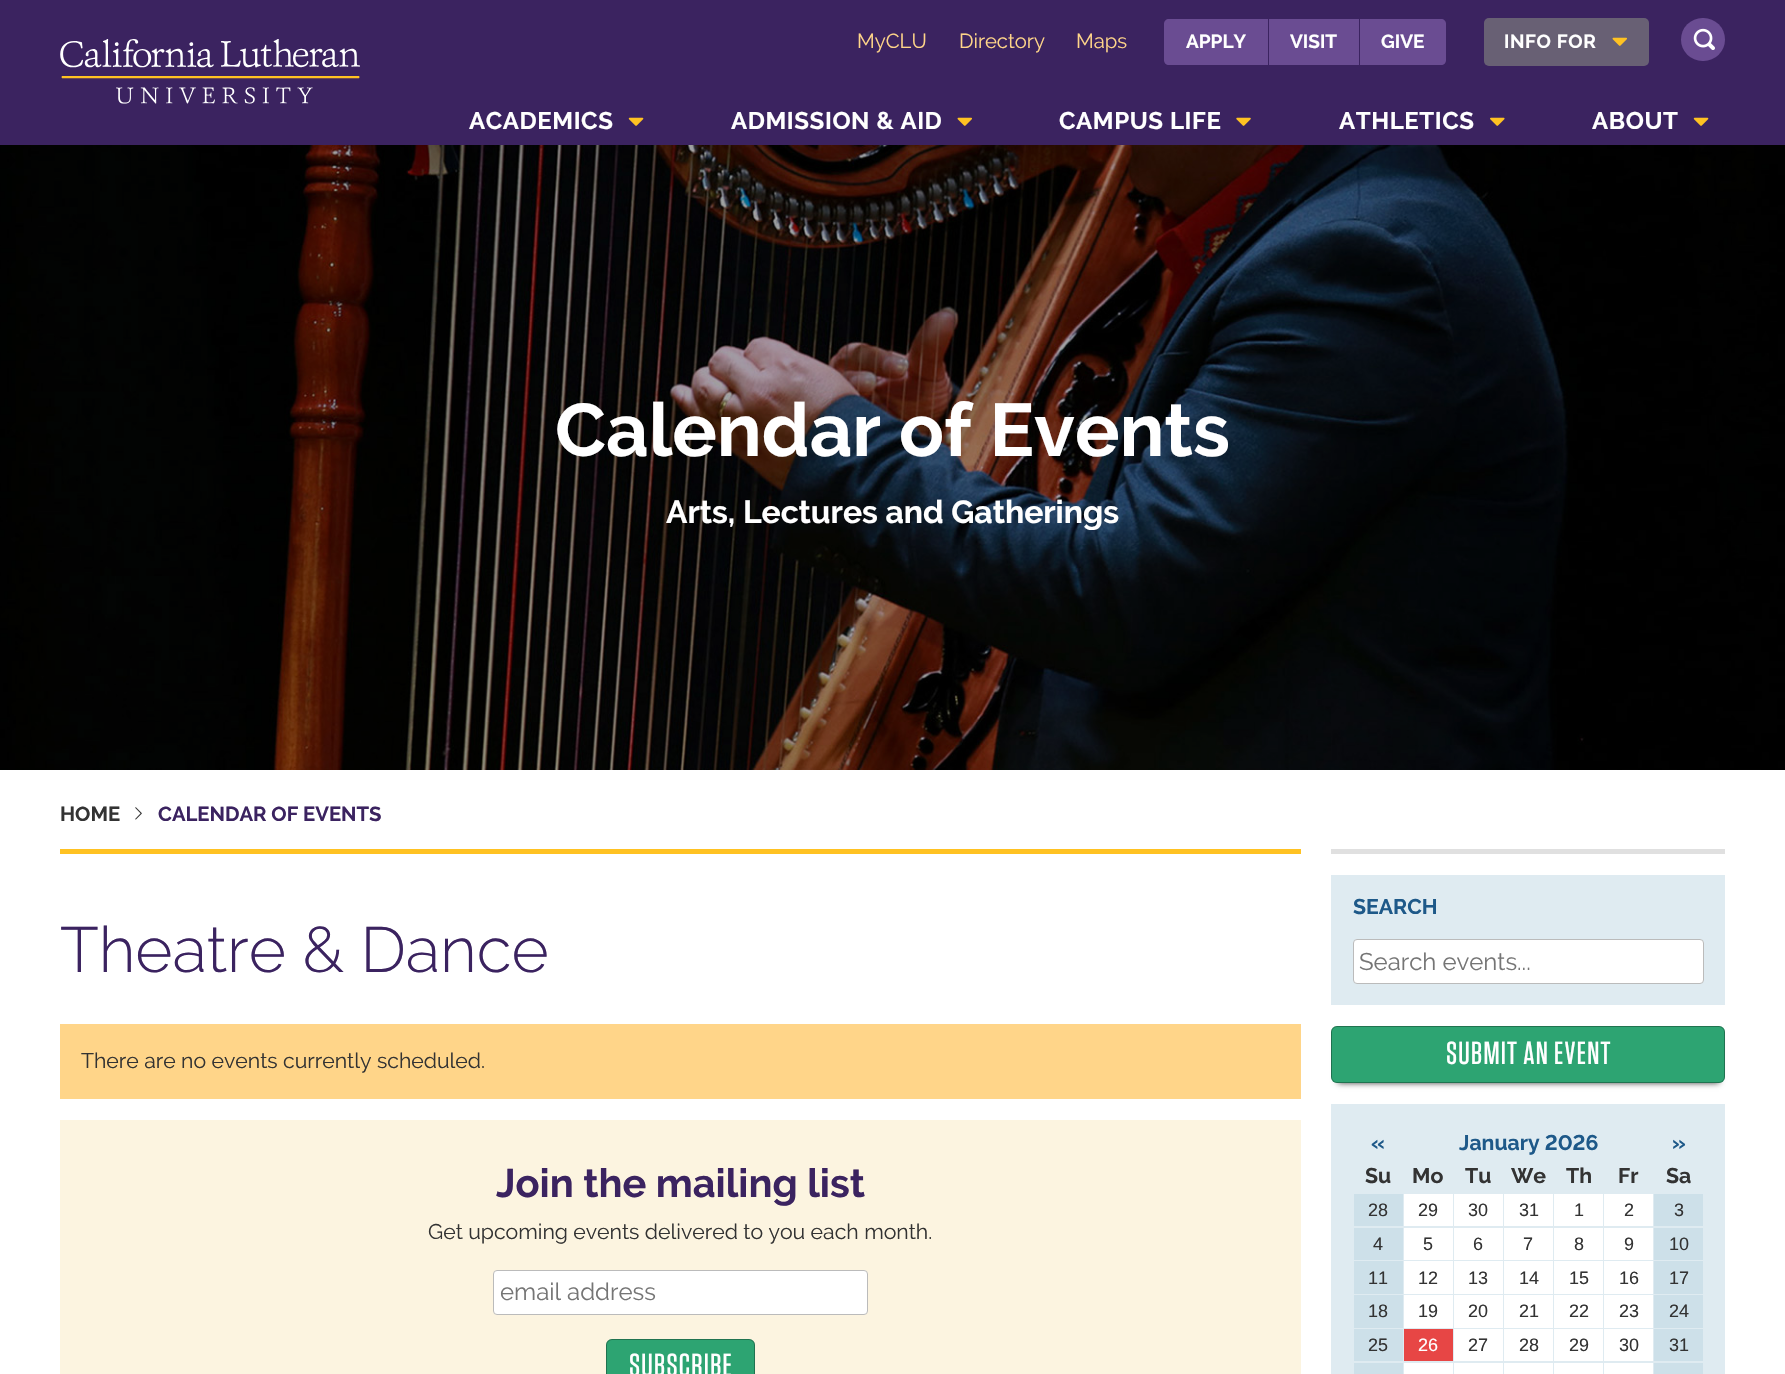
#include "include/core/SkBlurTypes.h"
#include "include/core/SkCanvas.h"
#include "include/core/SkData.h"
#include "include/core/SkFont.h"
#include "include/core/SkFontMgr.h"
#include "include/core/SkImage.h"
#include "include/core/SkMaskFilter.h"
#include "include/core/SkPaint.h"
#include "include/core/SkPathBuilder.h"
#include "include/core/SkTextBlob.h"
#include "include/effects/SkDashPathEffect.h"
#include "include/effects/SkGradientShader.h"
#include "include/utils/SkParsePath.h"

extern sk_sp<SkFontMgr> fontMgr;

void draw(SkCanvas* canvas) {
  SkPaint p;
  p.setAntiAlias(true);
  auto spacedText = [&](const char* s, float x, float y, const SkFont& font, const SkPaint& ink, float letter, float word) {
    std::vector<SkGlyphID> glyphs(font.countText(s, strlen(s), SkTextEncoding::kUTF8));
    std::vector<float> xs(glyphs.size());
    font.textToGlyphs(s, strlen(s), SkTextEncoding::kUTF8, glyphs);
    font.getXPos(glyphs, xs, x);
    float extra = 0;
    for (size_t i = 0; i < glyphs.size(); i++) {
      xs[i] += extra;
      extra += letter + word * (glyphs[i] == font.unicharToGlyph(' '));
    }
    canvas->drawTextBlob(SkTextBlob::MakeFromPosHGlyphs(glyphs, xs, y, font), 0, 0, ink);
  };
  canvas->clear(SK_ColorWHITE);
  p.setColor(SkColorSetRGB(59, 35, 96));
  canvas->drawRect(SkRect::MakeLTRB(0, 0, 1785, 145), p);
  canvas->drawImageRect(SkImages::DeferredFromEncodedData(SkData::MakeFromFileName("images/1.png")), SkRect::MakeLTRB(60, 39, 360, 104), SkSamplingOptions());
  p.setColor(SkColorSetRGB(106, 76, 146));
  canvas->drawPath(SkPathBuilder().moveTo(1169, 19).lineTo(1268, 19).lineTo(1268, 65).lineTo(1169, 65).cubicTo(1166, 65, 1164, 63, 1164, 60).lineTo(1164, 24).cubicTo(1164, 21, 1166, 19, 1169, 19).close().detach(), p);
  canvas->drawRect(SkRect::MakeLTRB(1269, 19, 1359, 65), p);
  canvas->drawPath(SkPathBuilder().moveTo(1360, 19).lineTo(1441, 19).cubicTo(1444, 19, 1446, 21, 1446, 24).lineTo(1446, 60).cubicTo(1446, 63, 1444, 65, 1441, 65).lineTo(1360, 65).close().detach(), p);
  p.setColor(SkColorSetRGB(104, 96, 116));
  canvas->drawRoundRect(SkRect::MakeLTRB(1484, 18, 1649, 66), 5, 5, p);
  canvas->drawImageRect(SkImages::DeferredFromEncodedData(SkData::MakeFromFileName("images/2.png")), SkRect::MakeLTRB(1612, 37, 1627, 46), SkSamplingOptions());
  p.setColor(SkColorSetRGB(106, 76, 146));
  canvas->drawRoundRect(SkRect::MakeLTRB(1681, 18, 1725, 61), 21.5f, 21.5f, p);
  canvas->drawImageRect(SkImages::DeferredFromEncodedData(SkData::MakeFromFileName("images/3.png")), SkRect::MakeLTRB(1693, 28, 1715, 50), SkSamplingOptions());
  canvas->drawImageRect(SkImages::DeferredFromEncodedData(SkData::MakeFromFileName("images/4.png")), SkRect::MakeLTRB(628, 117, 644, 126), SkSamplingOptions());
  canvas->drawImageRect(SkImages::DeferredFromEncodedData(SkData::MakeFromFileName("images/5.png")), SkRect::MakeLTRB(957, 117, 972, 126), SkSamplingOptions());
  canvas->drawImageRect(SkImages::DeferredFromEncodedData(SkData::MakeFromFileName("images/6.png")), SkRect::MakeLTRB(1236, 117, 1251, 126), SkSamplingOptions());
  canvas->drawImageRect(SkImages::DeferredFromEncodedData(SkData::MakeFromFileName("images/7.png")), SkRect::MakeLTRB(1490, 117, 1505, 126), SkSamplingOptions());
  canvas->drawImageRect(SkImages::DeferredFromEncodedData(SkData::MakeFromFileName("images/4.png")), SkRect::MakeLTRB(1693, 117, 1709, 126), SkSamplingOptions());
  canvas->drawImageRect(SkImages::DeferredFromEncodedData(SkData::MakeFromFileName("images/8.png")), SkRect::MakeLTRB(0, 145, 1785, 770), SkSamplingOptions());
  p.setColor(SkColorSetRGB(255, 194, 34));
  canvas->drawRect(SkRect::MakeLTRB(60, 849, 1301, 854), p);
  canvas->drawImageRect(SkImages::DeferredFromEncodedData(SkData::MakeFromFileName("images/9.png")), SkRect::MakeLTRB(135, 807, 142, 820), SkSamplingOptions());
  p.setColor(SkColorSetRGB(255, 213, 137));
  canvas->drawRect(SkRect::MakeLTRB(60, 1024, 1301, 1099), p);
  p.setColor(SkColorSetRGB(252, 244, 224));
  canvas->drawRect(SkRect::MakeLTRB(60, 1120, 1301, 1374), p);
  p.setColor(SK_ColorWHITE);
  canvas->drawRoundRect(SkRect::MakeLTRB(493.5f, 1270.5f, 867.5f, 1314.5f), 3.5f, 3.5f, p);
  p.setStyle(SkPaint::kStroke_Style);
  p.setStrokeWidth(1);
  p.setColor(SkColorSetRGB(187, 187, 187));
  canvas->drawRoundRect(SkRect::MakeLTRB(493.5f, 1270.5f, 867.5f, 1314.5f), 3.5f, 3.5f, p);
  p.setStyle(SkPaint::kFill_Style);
  p.setColor(SkColorSetRGB(45, 164, 114));
  canvas->drawRoundRect(SkRect::MakeLTRB(606, 1339, 755, 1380), 6, 6, p);
  p.setStyle(SkPaint::kStroke_Style);
  p.setColor(SkColorSetARGB(77, 0, 0, 0));
  canvas->drawRoundRect(SkRect::MakeLTRB(606.5f, 1339.5f, 754.5f, 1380.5f), 5.5f, 5.5f, p);
  p.setStyle(SkPaint::kFill_Style);
  p.setColor(SkColorSetRGB(224, 224, 224));
  canvas->drawRect(SkRect::MakeLTRB(1331, 849, 1725, 854), p);
  p.setColor(SkColorSetRGB(223, 235, 241));
  canvas->drawRect(SkRect::MakeLTRB(1331, 875, 1725, 1005), p);
  p.setColor(SK_ColorWHITE);
  canvas->drawRoundRect(SkRect::MakeLTRB(1353.5f, 939.5f, 1703.5f, 983.5f), 3.5f, 3.5f, p);
  p.setStyle(SkPaint::kStroke_Style);
  p.setColor(SkColorSetRGB(187, 187, 187));
  canvas->drawRoundRect(SkRect::MakeLTRB(1353.5f, 939.5f, 1703.5f, 983.5f), 3.5f, 3.5f, p);
  p.setStyle(SkPaint::kFill_Style);
  p.setColor(SkColorSetARGB(191, 0, 0, 0));
  p.setMaskFilter(SkMaskFilter::MakeBlur(kNormal_SkBlurStyle, 3));
  canvas->drawRect(SkRect::MakeLTRB(1338, 1039, 1719, 1083), p);
  p.setMaskFilter(nullptr);
  p.setColor(SkColorSetRGB(45, 164, 114));
  canvas->drawRoundRect(SkRect::MakeLTRB(1331, 1026, 1725, 1083), 6, 6, p);
  p.setStyle(SkPaint::kStroke_Style);
  p.setColor(SkColorSetARGB(77, 0, 0, 0));
  canvas->drawRoundRect(SkRect::MakeLTRB(1331.5f, 1026.5f, 1724.5f, 1082.5f), 5.5f, 5.5f, p);
  p.setStyle(SkPaint::kFill_Style);
  p.setColor(SkColorSetRGB(223, 235, 241));
  canvas->drawRect(SkRect::MakeLTRB(1331, 1104, 1725, 1374), p);
  p.setColor(SkColorSetRGB(205, 224, 233));
  canvas->drawRect(SkRect::MakeLTRB(1354, 1194, 1403, 1226), p);
  p.setColor(SK_ColorWHITE);
  canvas->drawRect(SkRect::MakeLTRB(1404, 1194, 1453, 1226), p);
  canvas->drawRect(SkRect::MakeLTRB(1454, 1194, 1503, 1226), p);
  canvas->drawRect(SkRect::MakeLTRB(1504, 1194, 1553, 1226), p);
  canvas->drawRect(SkRect::MakeLTRB(1554, 1194, 1603, 1226), p);
  canvas->drawRect(SkRect::MakeLTRB(1604, 1194, 1653, 1226), p);
  p.setColor(SkColorSetRGB(205, 224, 233));
  canvas->drawRect(SkRect::MakeLTRB(1654, 1194, 1703, 1226), p);
  canvas->drawRect(SkRect::MakeLTRB(1354, 1228, 1403, 1260), p);
  p.setColor(SK_ColorWHITE);
  canvas->drawRect(SkRect::MakeLTRB(1404, 1228, 1453, 1260), p);
  canvas->drawRect(SkRect::MakeLTRB(1454, 1228, 1503, 1260), p);
  canvas->drawRect(SkRect::MakeLTRB(1504, 1228, 1553, 1260), p);
  canvas->drawRect(SkRect::MakeLTRB(1554, 1228, 1603, 1260), p);
  canvas->drawRect(SkRect::MakeLTRB(1604, 1228, 1653, 1260), p);
  p.setColor(SkColorSetRGB(205, 224, 233));
  canvas->drawRect(SkRect::MakeLTRB(1654, 1228, 1703, 1260), p);
  canvas->drawRect(SkRect::MakeLTRB(1354, 1261, 1403, 1294), p);
  p.setColor(SK_ColorWHITE);
  canvas->drawRect(SkRect::MakeLTRB(1404, 1261, 1453, 1294), p);
  canvas->drawRect(SkRect::MakeLTRB(1454, 1261, 1503, 1294), p);
  canvas->drawRect(SkRect::MakeLTRB(1504, 1261, 1553, 1294), p);
  canvas->drawRect(SkRect::MakeLTRB(1554, 1261, 1603, 1294), p);
  canvas->drawRect(SkRect::MakeLTRB(1604, 1261, 1653, 1294), p);
  p.setColor(SkColorSetRGB(205, 224, 233));
  canvas->drawRect(SkRect::MakeLTRB(1654, 1261, 1703, 1294), p);
  canvas->drawRect(SkRect::MakeLTRB(1354, 1295, 1403, 1328), p);
  p.setColor(SK_ColorWHITE);
  canvas->drawRect(SkRect::MakeLTRB(1404, 1295, 1453, 1328), p);
  canvas->drawRect(SkRect::MakeLTRB(1454, 1295, 1503, 1328), p);
  canvas->drawRect(SkRect::MakeLTRB(1504, 1295, 1553, 1328), p);
  canvas->drawRect(SkRect::MakeLTRB(1554, 1295, 1603, 1328), p);
  canvas->drawRect(SkRect::MakeLTRB(1604, 1295, 1653, 1328), p);
  p.setColor(SkColorSetRGB(205, 224, 233));
  canvas->drawRect(SkRect::MakeLTRB(1654, 1295, 1703, 1328), p);
  canvas->drawRect(SkRect::MakeLTRB(1354, 1329, 1403, 1361), p);
  p.setColor(SkColorSetRGB(231, 70, 69));
  canvas->drawRect(SkRect::MakeLTRB(1404, 1329, 1453, 1361), p);
  p.setColor(SK_ColorWHITE);
  canvas->drawRect(SkRect::MakeLTRB(1454, 1329, 1503, 1361), p);
  canvas->drawRect(SkRect::MakeLTRB(1504, 1329, 1553, 1361), p);
  canvas->drawRect(SkRect::MakeLTRB(1554, 1329, 1603, 1361), p);
  canvas->drawRect(SkRect::MakeLTRB(1604, 1329, 1653, 1361), p);
  p.setColor(SkColorSetRGB(205, 224, 233));
  canvas->drawRect(SkRect::MakeLTRB(1654, 1329, 1703, 1361), p);
  canvas->drawRect(SkRect::MakeLTRB(1354, 1363, 1403, 1374), p);
  p.setColor(SK_ColorWHITE);
  canvas->drawRect(SkRect::MakeLTRB(1404, 1363, 1453, 1374), p);
  canvas->drawRect(SkRect::MakeLTRB(1454, 1363, 1503, 1374), p);
  canvas->drawRect(SkRect::MakeLTRB(1504, 1363, 1553, 1374), p);
  canvas->drawRect(SkRect::MakeLTRB(1554, 1363, 1603, 1374), p);
  canvas->drawRect(SkRect::MakeLTRB(1604, 1363, 1653, 1374), p);
  p.setColor(SkColorSetRGB(205, 224, 233));
  canvas->drawRect(SkRect::MakeLTRB(1654, 1363, 1703, 1374), p);
  SkFont font1(fontMgr->matchFamilyStyle("Raleway", SkFontStyle::Normal()), 20.25f);
  font1.setSubpixel(true);
  p.setColor(SkColorSetRGB(255, 213, 137));
  canvas->drawString("MyCLU", 857, 48, font1, p);
  canvas->drawString("Directory", 959, 48, font1, p);
  canvas->drawString("Maps", 1076, 48, font1, p);
  SkFont font2(fontMgr->matchFamilyStyle("Raleway", SkFontStyle::Bold()), 19);
  font2.setSubpixel(true);
  p.setColor(SK_ColorWHITE);
  canvas->drawString("APPLY", 1186, 48, font2, p);
  canvas->drawString("VISIT", 1290, 48, font2, p);
  canvas->drawString("GIVE", 1381, 48, font2, p);
  spacedText("INFO FOR", 1504, 48, font2, p, 0.6f, 0);
  SkFont font3(fontMgr->matchFamilyStyle("Raleway", SkFontStyle::Bold()), 24);
  font3.setSubpixel(true);
  spacedText("ACADEMICS", 469, 129, font3, p, 0.6f, 0);
  spacedText("ADMISSION & AID", 731, 129, font3, p, 0.6f, 0);
  spacedText("CAMPUS LIFE", 1059, 129, font3, p, 0.6f, 0);
  spacedText("ATHLETICS", 1339, 129, font3, p, 0.6f, 0);
  spacedText("ABOUT", 1592, 129, font3, p, 0.6f, 0);
  SkFont font4(fontMgr->matchFamilyStyle("Raleway", SkFontStyle::Bold()), 74.4f);
  font4.setSubpixel(true);
  canvas->drawString("Calendar of Events", 555, 456, font4, p);
  SkFont font5(fontMgr->matchFamilyStyle("Raleway", SkFontStyle::Bold()), 31.9f);
  font5.setSubpixel(true);
  canvas->drawString("Arts, Lectures and Gatherings", 666, 523, font5, p);
  SkFont font6(fontMgr->matchFamilyStyle("Raleway", SkFontStyle::Bold()), 20.25f);
  font6.setSubpixel(true);
  p.setColor(SkColorSetRGB(51, 51, 51));
  canvas->drawString("HOME", 60, 821, font6, p);
  p.setColor(SkColorSetRGB(59, 35, 96));
  canvas->drawString("CALENDAR OF EVENTS", 158, 821, font6, p);
  SkFont font7(fontMgr->matchFamilyStyle("Raleway", SkFontStyle(300, SkFontStyle::kNormal_Width, SkFontStyle::kUpright_Slant)), 63.75f);
  font7.setSubpixel(true);
  canvas->drawString("Theatre & Dance", 60, 972, font7, p);
  SkFont font8(fontMgr->matchFamilyStyle("Raleway", SkFontStyle::Normal()), 21.25f);
  font8.setSubpixel(true);
  p.setColor(SkColorSetRGB(51, 51, 51));
  canvas->drawString("There are no events currently scheduled.", 81, 1068, font8, p);
  SkFont font9(fontMgr->matchFamilyStyle("Raleway", SkFontStyle::Bold()), 39.75f);
  font9.setSubpixel(true);
  p.setColor(SkColorSetRGB(59, 35, 96));
  canvas->drawString("Join the mailing list", 496, 1197, font9, p);
  p.setColor(SkColorSetRGB(51, 51, 51));
  canvas->drawString("Get upcoming events delivered to you each month.", 428, 1239, font8, p);
  SkFont font10(fontMgr->matchFamilyStyle("Raleway", SkFontStyle::Normal()), 24);
  font10.setSubpixel(true);
  p.setColor(SkColorSetRGB(117, 117, 117));
  canvas->drawString("email address", 500, 1300, font10, p);
  SkFont font11(fontMgr->matchFamilyStyle("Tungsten", SkFontStyle(500, SkFontStyle::kNormal_Width, SkFontStyle::kUpright_Slant)), 31.9f);
  font11.setSubpixel(true);
  p.setColor(SK_ColorWHITE);
  spacedText("SUBSCRIBE", 629, 1376, font11, p, 1.25f, 0);
  SkFont font12(fontMgr->matchFamilyStyle("Raleway", SkFontStyle::Bold()), 21.25f);
  font12.setSubpixel(true);
  p.setColor(SkColorSetRGB(30, 89, 137));
  canvas->drawString("SEARCH", 1353, 914, font12, p);
  p.setColor(SkColorSetRGB(117, 117, 117));
  canvas->drawString("Search events...", 1359, 970, font10, p);
  p.setColor(SK_ColorWHITE);
  spacedText("SUBMIT AN EVENT", 1446, 1064, font11, p, 1.25f, 0);
  p.setColor(SkColorSetRGB(30, 89, 137));
  canvas->drawString("«", 1371, 1150, font12, p);
  canvas->drawString("January 2026", 1459, 1150, font12, p);
  canvas->drawString("»", 1672, 1150, font12, p);
  p.setColor(SkColorSetRGB(51, 51, 51));
  canvas->drawString("Su", 1365, 1183, font12, p);
  canvas->drawString("Mo", 1412, 1183, font12, p);
  canvas->drawString("Tu", 1465, 1183, font12, p);
  canvas->drawString("We", 1511, 1183, font12, p);
  canvas->drawString("Th", 1566, 1183, font12, p);
  canvas->drawString("Fr", 1618, 1183, font12, p);
  canvas->drawString("Sa", 1666, 1183, font12, p);
  SkFont font13(fontMgr->matchFamilyStyle("Liberation Sans", SkFontStyle::Normal()), 18);
  font13.setSubpixel(true);
  canvas->drawString("28", 1368, 1216, font13, p);
  canvas->drawString("29", 1418, 1216, font13, p);
  canvas->drawString("30", 1468, 1216, font13, p);
  canvas->drawString("31", 1519, 1216, font13, p);
  canvas->drawString("1", 1574, 1216, font13, p);
  canvas->drawString("2", 1624, 1216, font13, p);
  canvas->drawString("3", 1674, 1216, font13, p);
  canvas->drawString("4", 1373, 1250, font13, p);
  canvas->drawString("5", 1423, 1250, font13, p);
  canvas->drawString("6", 1473, 1250, font13, p);
  canvas->drawString("7", 1523, 1250, font13, p);
  canvas->drawString("8", 1574, 1250, font13, p);
  canvas->drawString("9", 1624, 1250, font13, p);
  canvas->drawString("10", 1669, 1250, font13, p);
  canvas->drawString("11", 1368, 1284, font13, p);
  canvas->drawString("12", 1418, 1284, font13, p);
  canvas->drawString("13", 1468, 1284, font13, p);
  canvas->drawString("14", 1519, 1284, font13, p);
  canvas->drawString("15", 1569, 1284, font13, p);
  canvas->drawString("16", 1619, 1284, font13, p);
  canvas->drawString("17", 1669, 1284, font13, p);
  canvas->drawString("18", 1368, 1317, font13, p);
  canvas->drawString("19", 1418, 1317, font13, p);
  canvas->drawString("20", 1468, 1317, font13, p);
  canvas->drawString("21", 1519, 1317, font13, p);
  canvas->drawString("22", 1569, 1317, font13, p);
  canvas->drawString("23", 1619, 1317, font13, p);
  canvas->drawString("24", 1669, 1317, font13, p);
  canvas->drawString("25", 1368, 1351, font13, p);
  p.setColor(SK_ColorWHITE);
  canvas->drawString("26", 1418, 1351, font13, p);
  p.setColor(SkColorSetRGB(51, 51, 51));
  canvas->drawString("27", 1468, 1351, font13, p);
  canvas->drawString("28", 1519, 1351, font13, p);
  canvas->drawString("29", 1569, 1351, font13, p);
  canvas->drawString("30", 1619, 1351, font13, p);
  canvas->drawString("31", 1669, 1351, font13, p);
}
